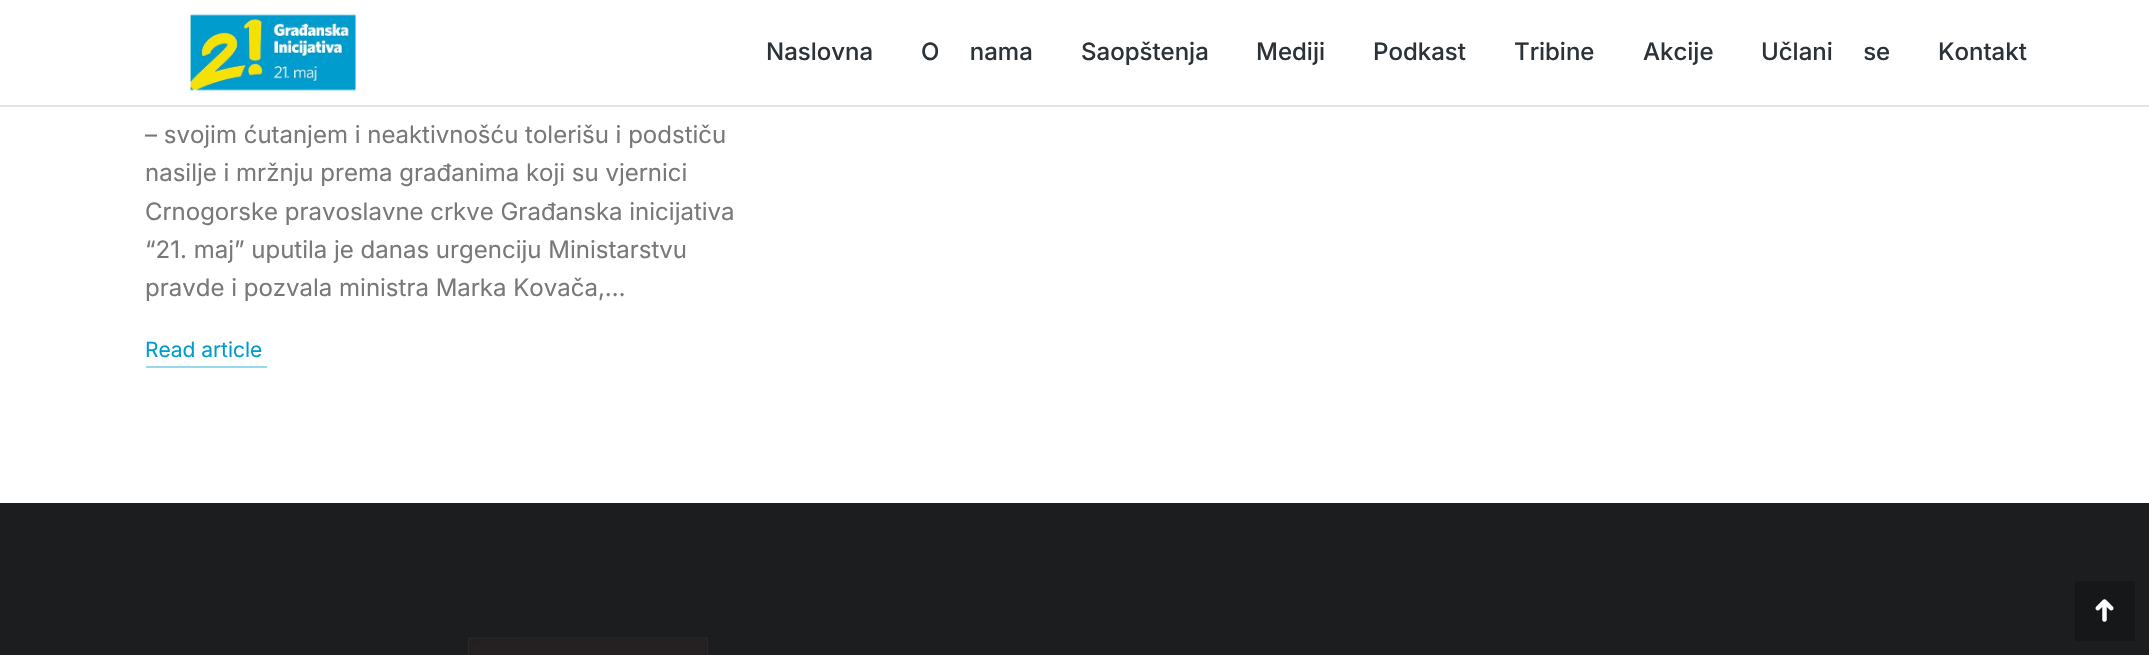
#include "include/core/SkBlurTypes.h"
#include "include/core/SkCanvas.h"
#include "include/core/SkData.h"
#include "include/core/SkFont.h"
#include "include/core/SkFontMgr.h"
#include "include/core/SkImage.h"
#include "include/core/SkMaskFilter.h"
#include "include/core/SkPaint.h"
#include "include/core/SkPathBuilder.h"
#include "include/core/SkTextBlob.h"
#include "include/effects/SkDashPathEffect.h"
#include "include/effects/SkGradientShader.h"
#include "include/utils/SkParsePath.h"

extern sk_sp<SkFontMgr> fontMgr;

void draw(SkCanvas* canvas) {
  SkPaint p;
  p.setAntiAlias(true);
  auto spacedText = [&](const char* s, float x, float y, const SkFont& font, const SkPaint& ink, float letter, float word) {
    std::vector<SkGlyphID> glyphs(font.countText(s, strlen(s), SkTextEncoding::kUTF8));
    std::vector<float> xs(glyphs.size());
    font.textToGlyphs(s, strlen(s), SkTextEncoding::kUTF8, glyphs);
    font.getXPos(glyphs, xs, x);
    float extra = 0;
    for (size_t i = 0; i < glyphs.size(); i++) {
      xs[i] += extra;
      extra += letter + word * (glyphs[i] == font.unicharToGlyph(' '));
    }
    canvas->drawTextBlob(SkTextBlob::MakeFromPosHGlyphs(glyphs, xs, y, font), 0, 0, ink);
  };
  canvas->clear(SK_ColorWHITE);
  p.setColor(SkColorSetRGB(228, 228, 229));
  canvas->drawRect(SkRect::MakeLTRB(0, 105, 2149, 107), p);
  canvas->drawImageRect(SkImages::DeferredFromEncodedData(SkData::MakeFromFileName("images/1.png")), SkRect::MakeLTRB(190, 14, 356, 91), SkSamplingOptions());
  p.setColor(SkColorSetRGB(153, 215, 235));
  canvas->drawRect(SkRect::MakeLTRB(146, 366, 267, 368), p);
  p.setColor(SkColorSetRGB(27, 29, 31));
  canvas->drawRect(SkRect::MakeLTRB(0, 503, 2149, 655), p);
  canvas->drawImageRect(SkImages::DeferredFromEncodedData(SkData::MakeFromFileName("images/2.png")), SkRect::MakeLTRB(468, 637, 708, 655), SkSamplingOptions());
  p.setColor(SkColorSetRGB(22, 23, 25));
  canvas->drawRect(SkRect::MakeLTRB(2075, 581, 2135, 641), p);
  canvas->drawImageRect(SkImages::DeferredFromEncodedData(SkData::MakeFromFileName("images/3.png")), SkRect::MakeLTRB(2095, 599, 2114, 622), SkSamplingOptions());
  SkFont font1(fontMgr->matchFamilyStyle("Inter", SkFontStyle(500, SkFontStyle::kNormal_Width, SkFontStyle::kUpright_Slant)), 24);
  font1.setSubpixel(true);
  p.setColor(SkColorSetRGB(44, 51, 56));
  canvas->drawString("Naslovna", 766, 60, font1, p);
  spacedText("O nama", 921, 60, font1, p, 0, 24);
  canvas->drawString("Saopštenja", 1081, 60, font1, p);
  canvas->drawString("Mediji", 1256, 60, font1, p);
  canvas->drawString("Podkast", 1373, 60, font1, p);
  canvas->drawString("Tribine", 1514, 60, font1, p);
  canvas->drawString("Akcije", 1643, 60, font1, p);
  spacedText("Učlani se", 1761, 60, font1, p, 0, 24);
  canvas->drawString("Kontakt", 1938, 60, font1, p);
  SkFont font2(fontMgr->matchFamilyStyle("Inter", SkFontStyle::Normal()), 24);
  font2.setSubpixel(true);
  p.setColor(SkColorSetRGB(120, 120, 120));
  canvas->drawString("– svojim ćutanjem i neaktivnošću tolerišu i podstiču", 145, 143, font2, p);
  canvas->drawString("nasilje i mržnju prema građanima koji su vjernici", 145, 181, font2, p);
  canvas->drawString("Crnogorske pravoslavne crkve Građanska inicijativa", 145, 220, font2, p);
  canvas->drawString("“21. maj” uputila je danas urgenciju Ministarstvu", 145, 258, font2, p);
  canvas->drawString("pravde i pozvala ministra Marka Kovača,…", 145, 296, font2, p);
  SkFont font3(fontMgr->matchFamilyStyle("Inter", SkFontStyle::Normal()), 21);
  font3.setSubpixel(true);
  p.setColor(SkColorSetRGB(0, 156, 206));
  canvas->drawString("Read article", 145, 357, font3, p);
}
